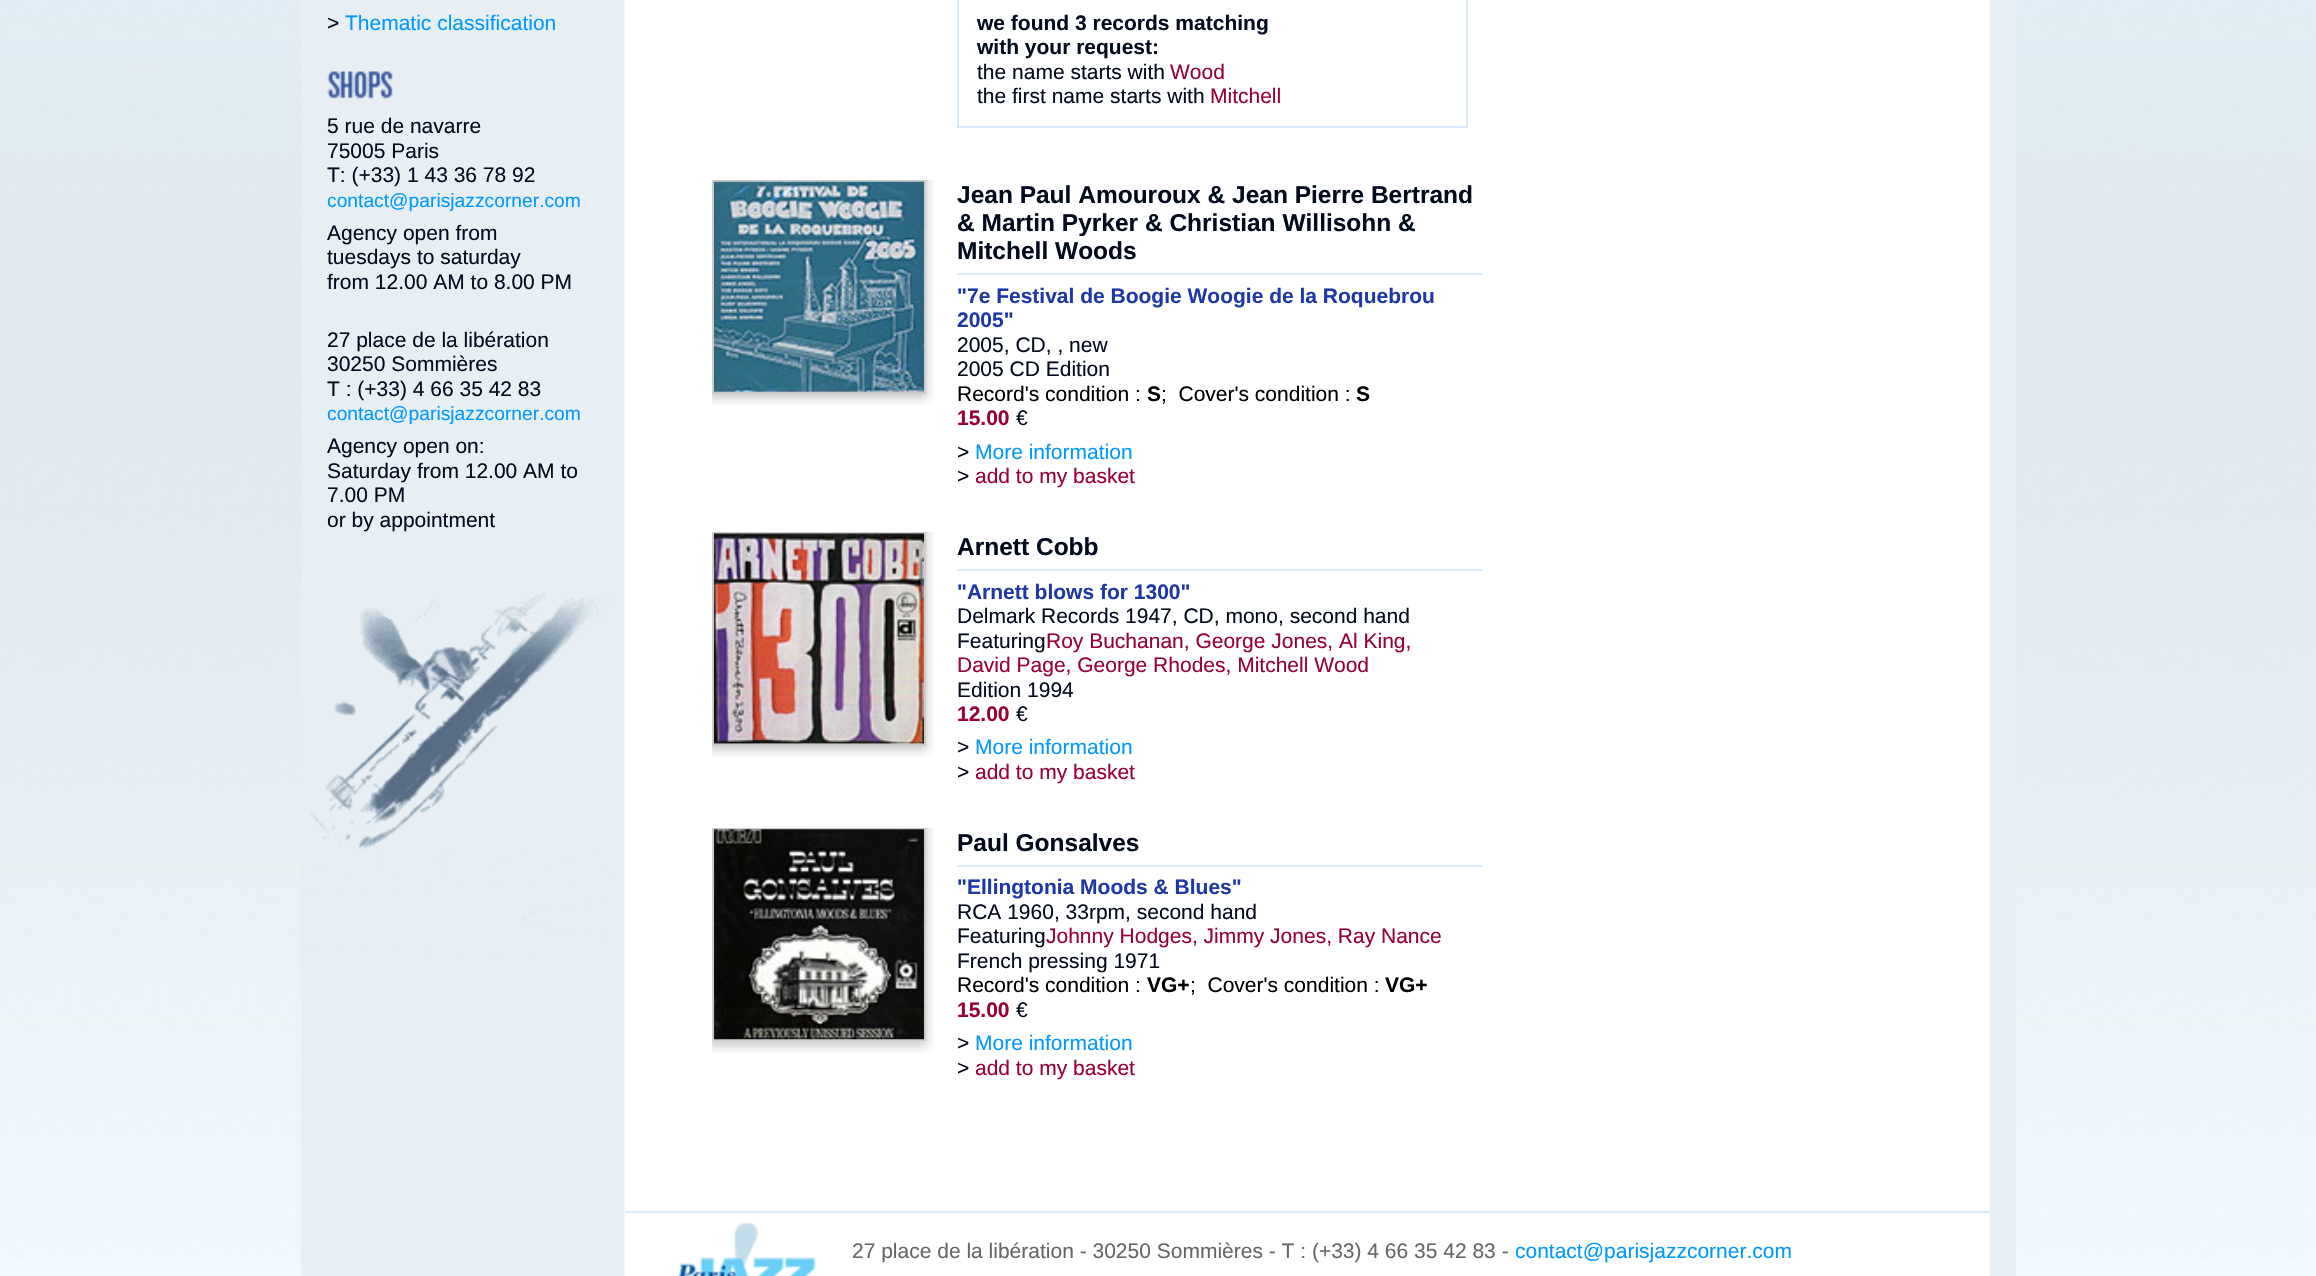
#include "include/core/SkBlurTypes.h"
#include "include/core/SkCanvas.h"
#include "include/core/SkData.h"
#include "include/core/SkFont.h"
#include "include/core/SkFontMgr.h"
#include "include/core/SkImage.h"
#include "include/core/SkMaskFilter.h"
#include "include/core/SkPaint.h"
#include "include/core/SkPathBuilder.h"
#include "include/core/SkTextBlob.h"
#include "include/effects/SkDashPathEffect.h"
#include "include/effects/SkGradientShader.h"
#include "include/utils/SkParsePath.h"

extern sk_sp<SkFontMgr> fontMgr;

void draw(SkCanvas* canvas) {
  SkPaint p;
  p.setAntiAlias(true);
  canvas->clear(SkColorSetRGB(243, 250, 255));
  canvas->drawImageRect(SkImages::DeferredFromEncodedData(SkData::MakeFromFileName("images/1.png")), SkRect::MakeLTRB(0, 0, 2316, 1258), SkSamplingOptions());
  canvas->drawImageRect(SkImages::DeferredFromEncodedData(SkData::MakeFromFileName("images/2.png")), SkRect::MakeLTRB(301, 0, 2016, 1276), SkSamplingOptions());
  canvas->drawImageRect(SkImages::DeferredFromEncodedData(SkData::MakeFromFileName("images/3.png")), SkRect::MakeLTRB(310, 593, 612, 959), SkSamplingOptions());
  canvas->drawImageRect(SkImages::DeferredFromEncodedData(SkData::MakeFromFileName("images/4.png")), SkRect::MakeLTRB(327, 71, 393, 99), SkSamplingOptions());
  p.setStyle(SkPaint::kStroke_Style);
  p.setStrokeWidth(2);
  p.setColor(SkColorSetRGB(215, 235, 252));
  canvas->drawRect(SkRect::MakeLTRB(958, -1, 1467, 127), p);
  canvas->drawImageRect(SkImages::DeferredFromEncodedData(SkData::MakeFromFileName("images/5.png")), SkRect::MakeLTRB(712, 180, 935, 406), SkSamplingOptions());
  p.setColor(SkColorSetRGB(204, 204, 204));
  canvas->drawRect(SkRect::MakeLTRB(713, 181, 925, 393), p);
  canvas->drawImageRect(SkImages::DeferredFromEncodedData(SkData::MakeFromFileName("images/6.png")), SkRect::MakeLTRB(714, 181, 924, 392), SkSamplingOptions());
  p.setStyle(SkPaint::kFill_Style);
  p.setColor(SkColorSetRGB(215, 235, 252));
  canvas->drawRect(SkRect::MakeLTRB(957, 273, 1482, 275), p);
  canvas->drawImageRect(SkImages::DeferredFromEncodedData(SkData::MakeFromFileName("images/7.png")), SkRect::MakeLTRB(712, 531, 935, 758), SkSamplingOptions());
  p.setStyle(SkPaint::kStroke_Style);
  p.setColor(SkColorSetRGB(204, 204, 204));
  canvas->drawRect(SkRect::MakeLTRB(713, 533, 925, 745), p);
  canvas->drawImageRect(SkImages::DeferredFromEncodedData(SkData::MakeFromFileName("images/8.png")), SkRect::MakeLTRB(714, 533, 924, 744), SkSamplingOptions());
  p.setStyle(SkPaint::kFill_Style);
  p.setColor(SkColorSetRGB(215, 235, 252));
  canvas->drawRect(SkRect::MakeLTRB(957, 569, 1482, 571), p);
  canvas->drawImageRect(SkImages::DeferredFromEncodedData(SkData::MakeFromFileName("images/9.png")), SkRect::MakeLTRB(712, 827, 935, 1054), SkSamplingOptions());
  p.setStyle(SkPaint::kStroke_Style);
  p.setColor(SkColorSetRGB(204, 204, 204));
  canvas->drawRect(SkRect::MakeLTRB(713, 829, 925, 1040), p);
  canvas->drawImageRect(SkImages::DeferredFromEncodedData(SkData::MakeFromFileName("images/10.png")), SkRect::MakeLTRB(714, 829, 924, 1040), SkSamplingOptions());
  p.setStyle(SkPaint::kFill_Style);
  p.setColor(SkColorSetRGB(215, 235, 252));
  canvas->drawRect(SkRect::MakeLTRB(957, 865, 1482, 867), p);
  canvas->drawImageRect(SkImages::DeferredFromEncodedData(SkData::MakeFromFileName("images/11.png")), SkRect::MakeLTRB(678, 1222, 816, 1276), SkSamplingOptions());
  canvas->drawRect(SkRect::MakeLTRB(625, 1211, 1990, 1213), p);
  SkFont font1(fontMgr->matchFamilyStyle("Liberation Sans", SkFontStyle::Normal()), 21);
  font1.setSubpixel(true);
  p.setColor(SkColorSetRGB(3, 11, 30));
  canvas->drawString(">", 327, 30, font1, p);
  p.setColor(SkColorSetRGB(0, 153, 255));
  canvas->drawString("Thematic classification", 345, 30, font1, p);
  p.setColor(SkColorSetRGB(3, 11, 30));
  canvas->drawString("5 rue de navarre", 327, 133, font1, p);
  canvas->drawString("75005 Paris", 327, 158, font1, p);
  canvas->drawString("T: (+33) 1 43 36 78 92", 327, 182, font1, p);
  SkFont font2(fontMgr->matchFamilyStyle("Liberation Sans", SkFontStyle::Normal()), 19.25f);
  font2.setSubpixel(true);
  p.setColor(SkColorSetRGB(0, 153, 255));
  canvas->drawString("contact@parisjazzcorner.com", 327, 207, font2, p);
  p.setColor(SkColorSetRGB(3, 11, 30));
  canvas->drawString("Agency open from", 327, 240, font1, p);
  canvas->drawString("tuesdays to saturday", 327, 264, font1, p);
  canvas->drawString("from 12.00 AM to 8.00 PM", 327, 289, font1, p);
  canvas->drawString("27 place de la libération", 327, 347, font1, p);
  canvas->drawString("30250 Sommières", 327, 371, font1, p);
  canvas->drawString("T : (+33) 4 66 35 42 83", 327, 396, font1, p);
  p.setColor(SkColorSetRGB(0, 153, 255));
  canvas->drawString("contact@parisjazzcorner.com", 327, 420, font2, p);
  p.setColor(SkColorSetRGB(3, 11, 30));
  canvas->drawString("Agency open on:", 327, 453, font1, p);
  canvas->drawString("Saturday from 12.00 AM to", 327, 478, font1, p);
  canvas->drawString("7.00 PM", 327, 502, font1, p);
  canvas->drawString("or by appointment", 327, 527, font1, p);
  SkFont font3(fontMgr->matchFamilyStyle("Liberation Sans", SkFontStyle::Bold()), 21);
  font3.setSubpixel(true);
  canvas->drawString("we found 3 records matching", 977, 30, font3, p);
  canvas->drawString("with your request:", 977, 54, font3, p);
  canvas->drawString("the name starts with", 977, 79, font1, p);
  p.setColor(SkColorSetRGB(153, 0, 51));
  canvas->drawString("Wood", 1170, 79, font1, p);
  p.setColor(SkColorSetRGB(3, 11, 30));
  canvas->drawString("the first name starts with", 977, 103, font1, p);
  p.setColor(SkColorSetRGB(153, 0, 51));
  canvas->drawString("Mitchell", 1210, 103, font1, p);
  SkFont font4(fontMgr->matchFamilyStyle("Liberation Sans", SkFontStyle::Bold()), 24.5f);
  font4.setSubpixel(true);
  p.setColor(SkColorSetRGB(3, 11, 30));
  canvas->drawString("Jean Paul Amouroux & Jean Pierre Bertrand", 957, 203, font4, p);
  canvas->drawString("& Martin Pyrker & Christian Willisohn &", 957, 231, font4, p);
  canvas->drawString("Mitchell Woods", 957, 259, font4, p);
  p.setColor(SkColorSetRGB(30, 56, 168));
  canvas->drawString("\"7e Festival de Boogie Woogie de la Roquebrou", 957, 303, font3, p);
  canvas->drawString("2005\"", 957, 327, font3, p);
  p.setColor(SkColorSetRGB(3, 11, 30));
  canvas->drawString("2005, CD, , new", 957, 352, font1, p);
  canvas->drawString("2005 CD Edition", 957, 376, font1, p);
  p.setColor(SK_ColorBLACK);
  canvas->drawString("Record's condition :", 957, 401, font1, p);
  canvas->drawString("S", 1147, 401, font3, p);
  canvas->drawString(";  Cover's condition :", 1161, 401, font1, p);
  canvas->drawString("S", 1356, 401, font3, p);
  p.setColor(SkColorSetRGB(153, 0, 51));
  canvas->drawString("15.00", 957, 425, font3, p);
  p.setColor(SkColorSetRGB(3, 11, 30));
  canvas->drawString("€", 1016, 425, font1, p);
  canvas->drawString(">", 957, 459, font1, p);
  p.setColor(SkColorSetRGB(0, 153, 255));
  canvas->drawString("More information", 975, 459, font1, p);
  p.setColor(SkColorSetRGB(3, 11, 30));
  canvas->drawString(">", 957, 483, font1, p);
  p.setColor(SkColorSetRGB(153, 0, 51));
  canvas->drawString("add to my basket", 975, 483, font1, p);
  p.setColor(SkColorSetRGB(3, 11, 30));
  canvas->drawString("Arnett Cobb", 957, 555, font4, p);
  p.setColor(SkColorSetRGB(30, 56, 168));
  canvas->drawString("\"Arnett blows for 1300\"", 957, 599, font3, p);
  p.setColor(SkColorSetRGB(3, 11, 30));
  canvas->drawString("Delmark Records 1947, CD, mono, second hand", 957, 623, font1, p);
  canvas->drawString("Featuring", 957, 648, font1, p);
  p.setColor(SkColorSetRGB(153, 0, 51));
  canvas->drawString("Roy Buchanan, George Jones, Al King,", 1046, 648, font1, p);
  canvas->drawString("David Page, George Rhodes, Mitchell Wood", 957, 672, font1, p);
  p.setColor(SkColorSetRGB(3, 11, 30));
  canvas->drawString("Edition 1994", 957, 697, font1, p);
  p.setColor(SkColorSetRGB(153, 0, 51));
  canvas->drawString("12.00", 957, 721, font3, p);
  p.setColor(SkColorSetRGB(3, 11, 30));
  canvas->drawString("€", 1016, 721, font1, p);
  canvas->drawString(">", 957, 754, font1, p);
  p.setColor(SkColorSetRGB(0, 153, 255));
  canvas->drawString("More information", 975, 754, font1, p);
  p.setColor(SkColorSetRGB(3, 11, 30));
  canvas->drawString(">", 957, 779, font1, p);
  p.setColor(SkColorSetRGB(153, 0, 51));
  canvas->drawString("add to my basket", 975, 779, font1, p);
  p.setColor(SkColorSetRGB(3, 11, 30));
  canvas->drawString("Paul Gonsalves", 957, 851, font4, p);
  p.setColor(SkColorSetRGB(30, 56, 168));
  canvas->drawString("\"Ellingtonia Moods & Blues\"", 957, 894, font3, p);
  p.setColor(SkColorSetRGB(3, 11, 30));
  canvas->drawString("RCA 1960, 33rpm, second hand", 957, 919, font1, p);
  canvas->drawString("Featuring", 957, 943, font1, p);
  p.setColor(SkColorSetRGB(153, 0, 51));
  canvas->drawString("Johnny Hodges, Jimmy Jones, Ray Nance", 1046, 943, font1, p);
  p.setColor(SkColorSetRGB(3, 11, 30));
  canvas->drawString("French pressing 1971", 957, 968, font1, p);
  p.setColor(SK_ColorBLACK);
  canvas->drawString("Record's condition :", 957, 992, font1, p);
  canvas->drawString("VG+", 1147, 992, font3, p);
  canvas->drawString(";  Cover's condition :", 1190, 992, font1, p);
  canvas->drawString("VG+", 1385, 992, font3, p);
  p.setColor(SkColorSetRGB(153, 0, 51));
  canvas->drawString("15.00", 957, 1017, font3, p);
  p.setColor(SkColorSetRGB(3, 11, 30));
  canvas->drawString("€", 1016, 1017, font1, p);
  canvas->drawString(">", 957, 1050, font1, p);
  p.setColor(SkColorSetRGB(0, 153, 255));
  canvas->drawString("More information", 975, 1050, font1, p);
  p.setColor(SkColorSetRGB(3, 11, 30));
  canvas->drawString(">", 957, 1075, font1, p);
  p.setColor(SkColorSetRGB(153, 0, 51));
  canvas->drawString("add to my basket", 975, 1075, font1, p);
  p.setColor(SkColorSetRGB(102, 102, 102));
  canvas->drawString("27 place de la libération - 30250 Sommières - T : (+33) 4 66 35 42 83 -", 852, 1258, font1, p);
  p.setColor(SkColorSetRGB(0, 153, 255));
  canvas->drawString("contact@parisjazzcorner.com", 1515, 1258, font1, p);
}
